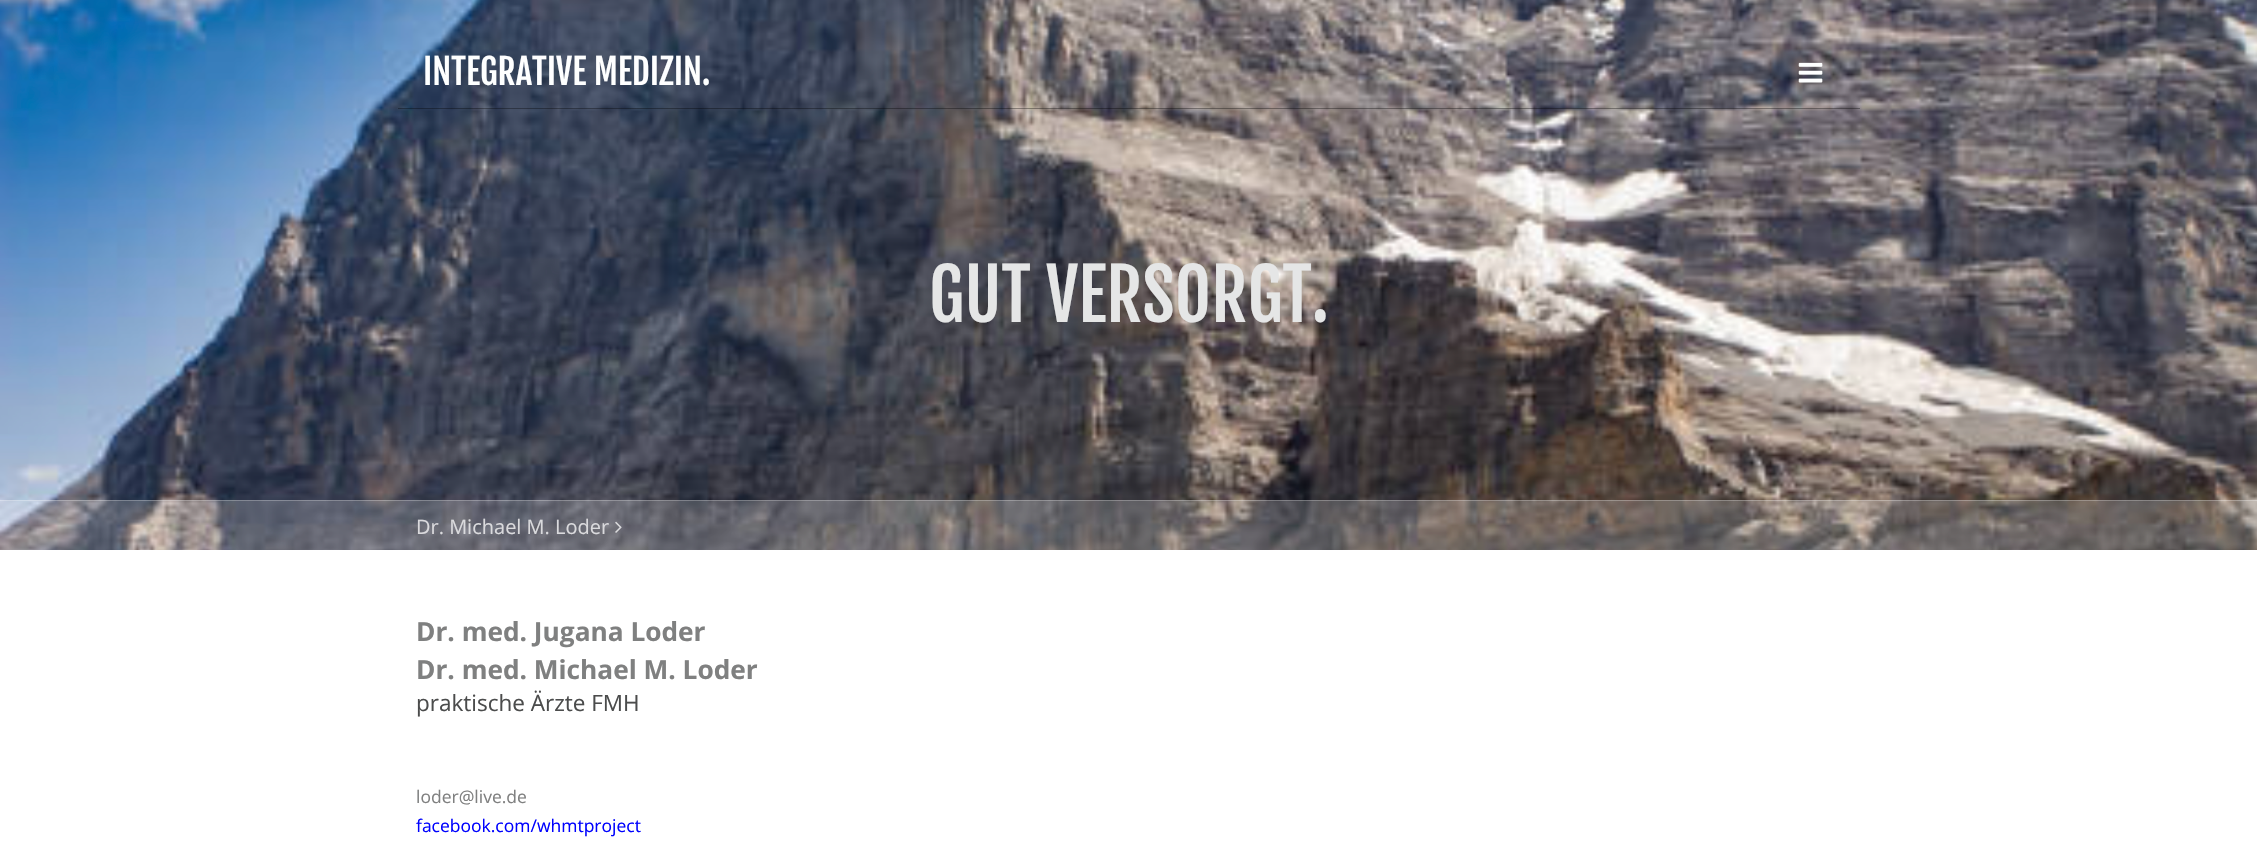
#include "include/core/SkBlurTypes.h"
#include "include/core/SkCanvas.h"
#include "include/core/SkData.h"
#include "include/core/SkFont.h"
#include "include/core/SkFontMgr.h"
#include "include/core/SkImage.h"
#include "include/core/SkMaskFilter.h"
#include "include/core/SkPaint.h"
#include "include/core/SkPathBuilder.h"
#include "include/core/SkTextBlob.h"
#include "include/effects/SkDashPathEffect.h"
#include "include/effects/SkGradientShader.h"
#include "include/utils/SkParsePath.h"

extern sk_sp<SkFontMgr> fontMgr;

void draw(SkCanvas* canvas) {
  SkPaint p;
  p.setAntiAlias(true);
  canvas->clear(SK_ColorWHITE);
  canvas->drawImageRect(SkImages::DeferredFromEncodedData(SkData::MakeFromFileName("images/1.png")), SkRect::MakeLTRB(0, 0, 2257, 550), SkSamplingOptions());
  p.setColor(SkColorSetARGB(84, 0, 0, 0));
  canvas->drawRect(SkRect::MakeLTRB(398, 108, 1860, 109), p);
  canvas->drawImageRect(SkImages::DeferredFromEncodedData(SkData::MakeFromFileName("images/2.png")), SkRect::MakeLTRB(1798, 62, 1823, 83), SkSamplingOptions());
  p.setColor(SkColorSetARGB(51, 255, 255, 255));
  canvas->drawRect(SkRect::MakeLTRB(0, 500, 2257, 550), p);
  p.setColor(SkColorSetARGB(64, 255, 255, 255));
  canvas->drawRect(SkRect::MakeLTRB(0, 500, 2257, 501), p);
  canvas->drawImageRect(SkImages::DeferredFromEncodedData(SkData::MakeFromFileName("images/3.png")), SkRect::MakeLTRB(615, 521, 622, 533), SkSamplingOptions());
  SkFont font1(fontMgr->matchFamilyStyle("Fjalla One", SkFontStyle::Normal()), 35);
  font1.setSubpixel(true);
  p.setColor(SkColorSetRGB(254, 255, 255));
  canvas->drawString("INTEGRATIVE MEDIZIN.", 423, 85, font1, p);
  SkFont font2(fontMgr->matchFamilyStyle("Fjalla One", SkFontStyle::Normal()), 70);
  font2.setSubpixel(true);
  p.setColor(SkColorSetRGB(229, 230, 230));
  canvas->drawString("GUT VERSORGT.", 929, 322, font2, p);
  SkFont font3(fontMgr->matchFamilyStyle("Open Sans", SkFontStyle::Normal()), 20);
  font3.setSubpixel(true);
  p.setColor(SkColorSetRGB(218, 218, 221));
  canvas->drawString("Dr. Michael M. Loder", 416, 534, font3, p);
  SkFont font4(fontMgr->matchFamilyStyle("Open Sans", SkFontStyle::Bold()), 26.25f);
  font4.setSubpixel(true);
  p.setColor(SkColorSetRGB(127, 128, 128));
  canvas->drawString("Dr. med. Jugana Loder", 416, 641, font4, p);
  canvas->drawString("Dr. med. Michael M. Loder", 416, 679, font4, p);
  SkFont font5(fontMgr->matchFamilyStyle("Open Sans", SkFontStyle::Normal()), 22.5f);
  font5.setSubpixel(true);
  p.setColor(SkColorSetRGB(75, 76, 76));
  canvas->drawString("praktische Ärzte FMH", 416, 711, font5, p);
  SkFont font6(fontMgr->matchFamilyStyle("Open Sans", SkFontStyle::Normal()), 17.5f);
  font6.setSubpixel(true);
  p.setColor(SkColorSetRGB(127, 128, 128));
  canvas->drawString("loder@live.de", 416, 803, font6, p);
  p.setColor(SkColorSetRGB(0, 2, 254));
  canvas->drawString("facebook.com/whmtproject", 416, 832, font6, p);
}
